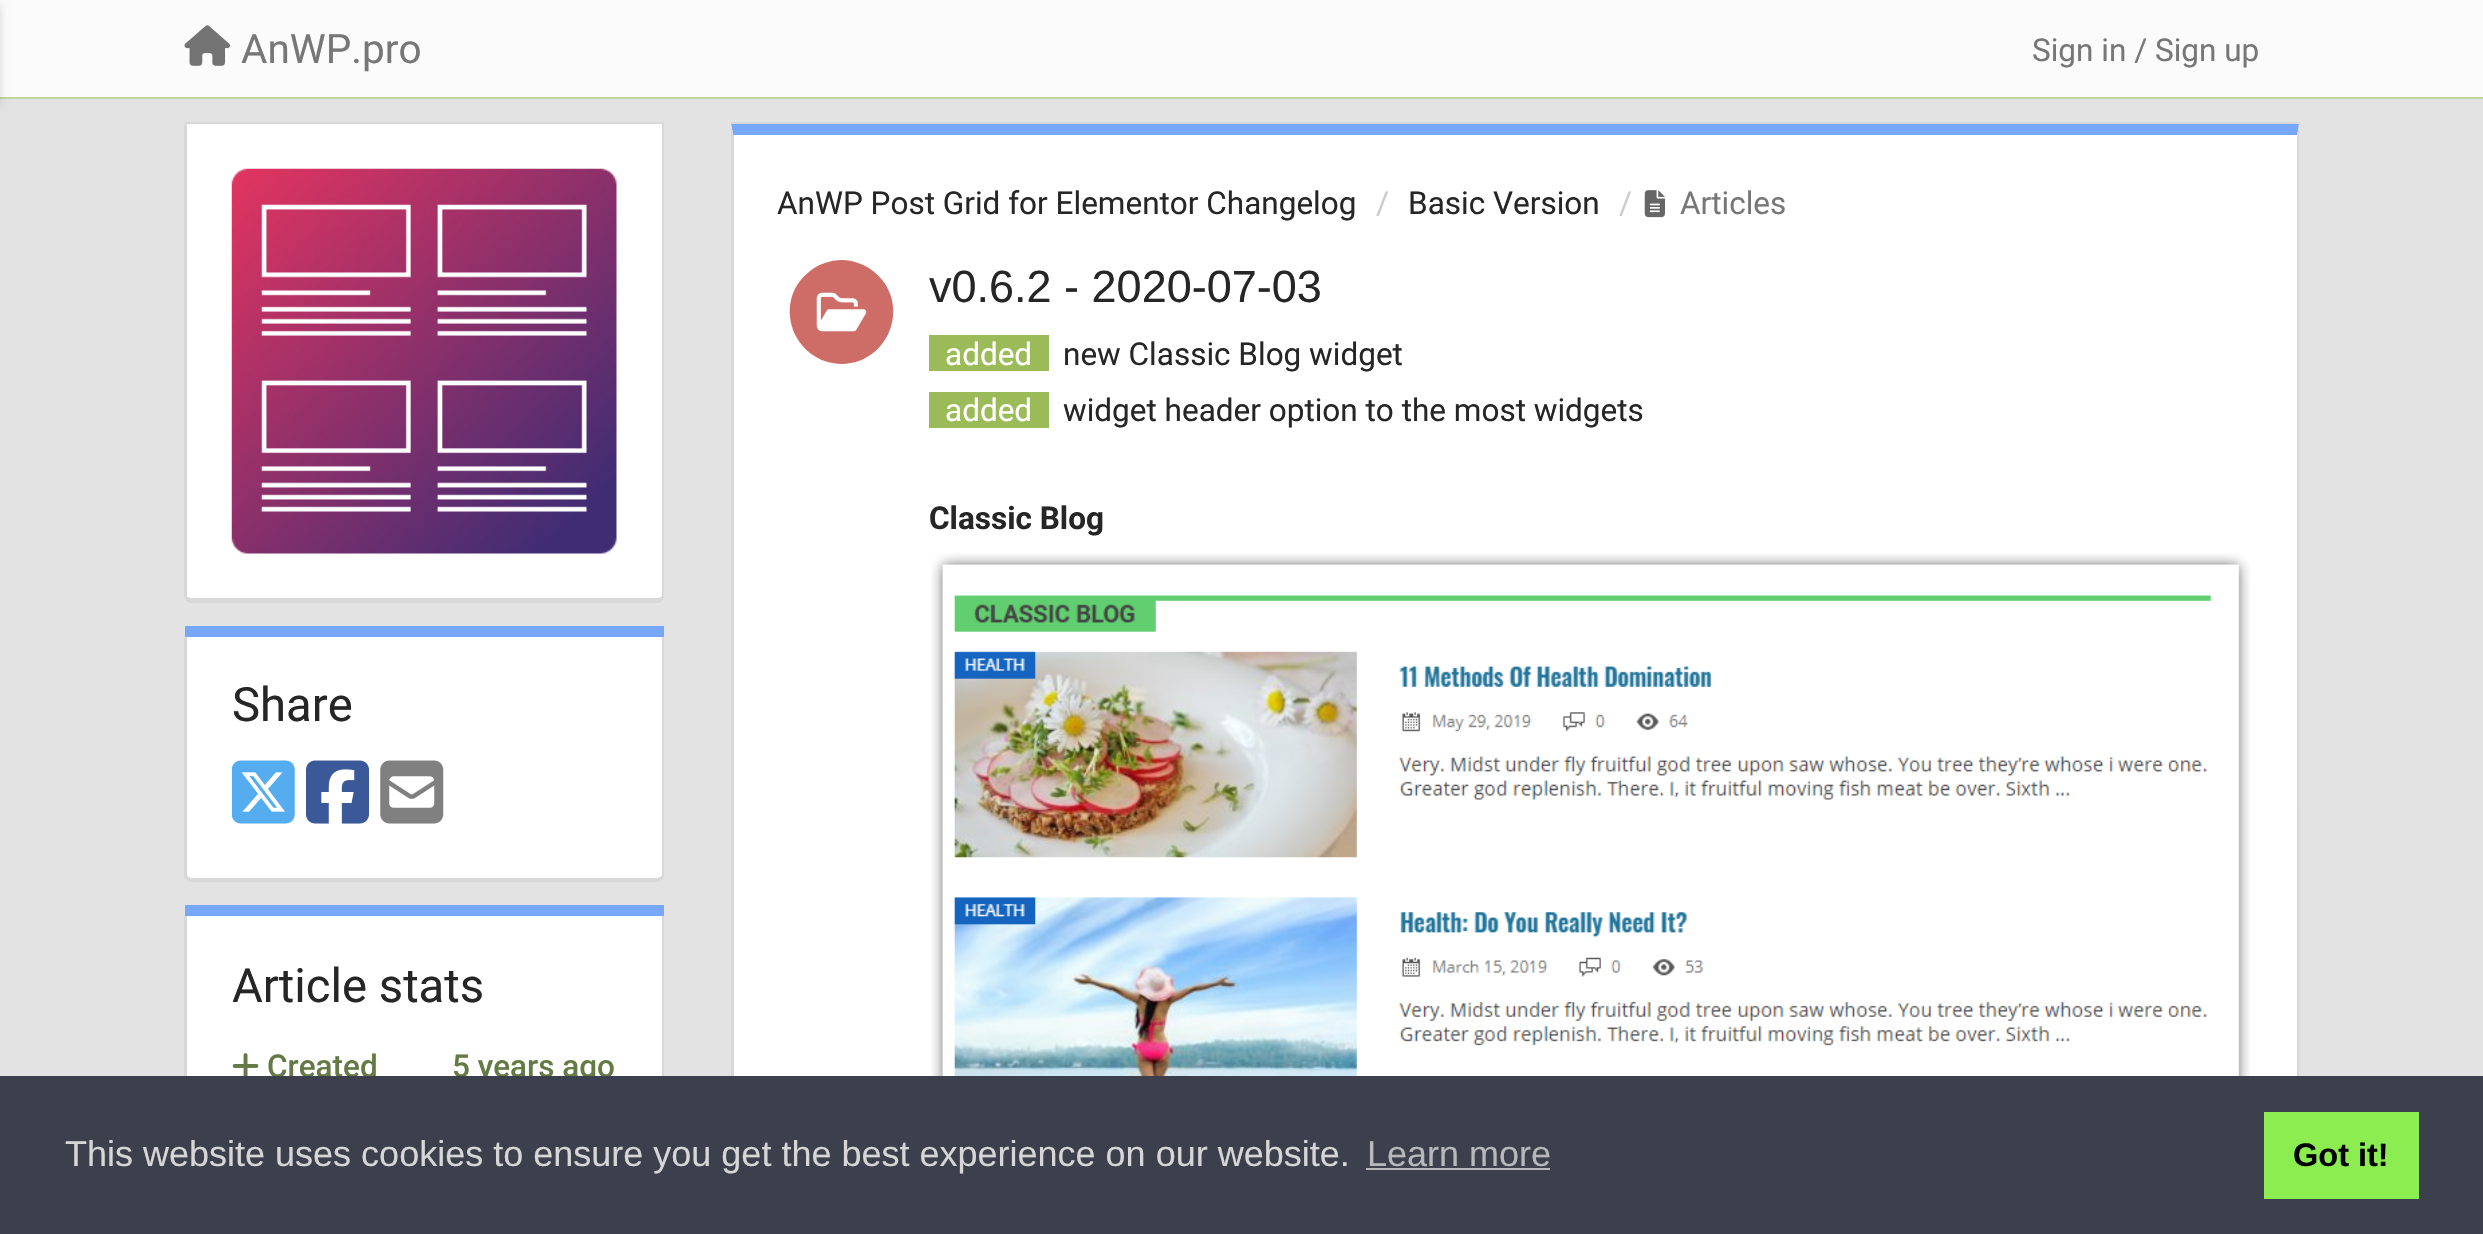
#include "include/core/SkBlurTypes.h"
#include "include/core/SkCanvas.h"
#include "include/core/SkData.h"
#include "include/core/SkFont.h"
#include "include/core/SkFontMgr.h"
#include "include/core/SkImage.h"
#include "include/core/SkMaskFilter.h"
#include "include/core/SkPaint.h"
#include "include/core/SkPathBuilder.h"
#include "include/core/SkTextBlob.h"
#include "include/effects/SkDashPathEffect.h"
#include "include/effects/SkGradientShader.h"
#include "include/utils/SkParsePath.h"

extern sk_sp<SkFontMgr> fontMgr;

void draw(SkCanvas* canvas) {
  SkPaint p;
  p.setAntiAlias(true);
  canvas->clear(SkColorSetRGB(227, 227, 227));
  p.setColor(SkColorSetRGB(251, 251, 251));
  canvas->drawRect(SkRect::MakeLTRB(0, 0, 2483, 97), p);
  p.setColor(SkColorSetRGB(191, 215, 156));
  canvas->drawRect(SkRect::MakeLTRB(0, 97, 2483, 99), p);
  p.setColor(SkColorSetARGB(38, 0, 0, 0));
  p.setMaskFilter(SkMaskFilter::MakeBlur(kNormal_SkBlurStyle, 4.5f));
  canvas->drawRect(SkRect::MakeLTRB(-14, 5, 0, 104), p);
  p.setMaskFilter(nullptr);
  canvas->drawImageRect(SkImages::DeferredFromEncodedData(SkData::MakeFromFileName("images/1.png")), SkRect::MakeLTRB(184, 25, 230, 66), SkSamplingOptions());
  p.setColor(SkColorSetRGB(216, 216, 216));
  canvas->drawRect(SkRect::MakeLTRB(731, 122, 2300, 124), p);
  p.setColor(SK_ColorWHITE);
  canvas->drawPath(SkPathBuilder().moveTo(734, 135).lineTo(2297, 135).lineTo(2297, 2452).cubicTo(2297, 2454, 2295, 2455, 2293, 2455).lineTo(738, 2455).cubicTo(736, 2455, 734, 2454, 734, 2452).close().detach(), p);
  p.setColor(SkColorSetRGB(118, 167, 250));
  canvas->drawPath(SkPathBuilder().moveTo(734, 135).lineTo(2297, 135).lineTo(2297, 136).lineTo(2299, 124).lineTo(731, 124).lineTo(734, 138).close().detach(), p);
  p.setColor(SkColorSetRGB(216, 216, 216));
  canvas->drawPath(SkPathBuilder().moveTo(2300, 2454).lineTo(2298, 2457).lineTo(2297, 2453).lineTo(2297, 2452).lineTo(2297, 136).lineTo(2299, 124).close().detach(), p);
  canvas->drawPath(SkPathBuilder().moveTo(731, 124).lineTo(734, 138).lineTo(734, 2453).lineTo(733, 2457).lineTo(731, 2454).close().detach(), p);
  canvas->drawImageRect(SkImages::DeferredFromEncodedData(SkData::MakeFromFileName("images/2.png")), SkRect::MakeLTRB(1644, 190, 1665, 218), SkSamplingOptions());
  p.setColor(SkColorSetRGB(206, 109, 103));
  canvas->drawPath(SkPathBuilder().moveTo(842, 364).cubicTo(891, 363, 912, 301, 873, 271).cubicTo(864, 264, 853, 260, 842, 260).cubicTo(830, 260, 819, 264, 810, 271).cubicTo(771, 301, 792, 363, 842, 364).close().detach(), p);
  canvas->drawImageRect(SkImages::DeferredFromEncodedData(SkData::MakeFromFileName("images/3.png")), SkRect::MakeLTRB(816, 292, 867, 332), SkSamplingOptions());
  p.setColor(SkColorSetRGB(155, 187, 89));
  canvas->drawRect(SkRect::MakeLTRB(929, 335, 1049, 371), p);
  canvas->drawRect(SkRect::MakeLTRB(929, 392, 1049, 428), p);
  canvas->drawImageRect(SkImages::DeferredFromEncodedData(SkData::MakeFromFileName("images/4.png")), SkRect::MakeLTRB(931, 553, 2250, 1076), SkSamplingOptions());
  p.setColor(SkColorSetRGB(216, 216, 216));
  canvas->drawRect(SkRect::MakeLTRB(185, 122, 664, 124), p);
  p.setColor(SK_ColorWHITE);
  canvas->drawPath(SkPathBuilder().moveTo(187, 124).lineTo(662, 124).lineTo(662, 596).cubicTo(662, 597, 659, 598, 657, 598).lineTo(191, 598).cubicTo(189, 598, 187, 597, 187, 596).close().detach(), p);
  p.setColor(SkColorSetRGB(216, 216, 216));
  canvas->drawPath(SkPathBuilder(SkPathFillType::kEvenOdd).moveTo(184, 124).lineTo(664, 124).lineTo(664, 596).cubicTo(664, 600, 661, 603, 657, 603).lineTo(191, 603).cubicTo(188, 603, 184, 600, 184, 596).close().moveTo(187, 124).lineTo(662, 124).lineTo(662, 596).cubicTo(662, 597, 659, 598, 657, 598).lineTo(191, 598).cubicTo(189, 598, 187, 597, 187, 596).close().detach(), p);
  canvas->drawImageRect(SkImages::DeferredFromEncodedData(SkData::MakeFromFileName("images/5.png")), SkRect::MakeLTRB(231, 168, 617, 554), SkSamplingOptions());
  p.setColor(SkColorSetRGB(118, 167, 250));
  canvas->drawRect(SkRect::MakeLTRB(185, 626, 664, 637), p);
  p.setColor(SK_ColorWHITE);
  canvas->drawPath(SkPathBuilder().moveTo(187, 637).lineTo(662, 637).lineTo(662, 875).cubicTo(662, 876, 659, 878, 657, 878).lineTo(191, 878).cubicTo(189, 878, 187, 876, 187, 875).close().detach(), p);
  p.setColor(SkColorSetRGB(216, 216, 216));
  canvas->drawPath(SkPathBuilder(SkPathFillType::kEvenOdd).moveTo(184, 637).lineTo(664, 637).lineTo(664, 875).cubicTo(664, 879, 661, 882, 657, 882).lineTo(191, 882).cubicTo(188, 882, 184, 879, 184, 875).close().moveTo(187, 637).lineTo(662, 637).lineTo(662, 875).cubicTo(662, 876, 659, 878, 657, 878).lineTo(191, 878).cubicTo(189, 878, 187, 876, 187, 875).close().detach(), p);
  canvas->drawImageRect(SkImages::DeferredFromEncodedData(SkData::MakeFromFileName("images/6.png")), SkRect::MakeLTRB(232, 760, 295, 824), SkSamplingOptions());
  canvas->drawImageRect(SkImages::DeferredFromEncodedData(SkData::MakeFromFileName("images/7.png")), SkRect::MakeLTRB(306, 760, 369, 824), SkSamplingOptions());
  canvas->drawImageRect(SkImages::DeferredFromEncodedData(SkData::MakeFromFileName("images/8.png")), SkRect::MakeLTRB(380, 760, 444, 824), SkSamplingOptions());
  p.setColor(SkColorSetRGB(118, 167, 250));
  canvas->drawRect(SkRect::MakeLTRB(185, 905, 664, 916), p);
  p.setColor(SK_ColorWHITE);
  canvas->drawPath(SkPathBuilder().moveTo(187, 916).lineTo(662, 916).lineTo(662, 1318).cubicTo(662, 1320, 659, 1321, 657, 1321).lineTo(191, 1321).cubicTo(189, 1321, 187, 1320, 187, 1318).close().detach(), p);
  p.setColor(SkColorSetRGB(216, 216, 216));
  canvas->drawPath(SkPathBuilder(SkPathFillType::kEvenOdd).moveTo(184, 916).lineTo(664, 916).lineTo(664, 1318).cubicTo(664, 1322, 661, 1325, 657, 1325).lineTo(191, 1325).cubicTo(188, 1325, 184, 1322, 184, 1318).close().moveTo(187, 916).lineTo(662, 916).lineTo(662, 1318).cubicTo(662, 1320, 659, 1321, 657, 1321).lineTo(191, 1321).cubicTo(189, 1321, 187, 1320, 187, 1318).close().detach(), p);
  canvas->drawImageRect(SkImages::DeferredFromEncodedData(SkData::MakeFromFileName("images/9.png")), SkRect::MakeLTRB(232, 1053, 259, 1076), SkSamplingOptions());
  SkFont font1(fontMgr->matchFamilyStyle("Roboto", SkFontStyle::Normal()), 40.5f);
  font1.setSubpixel(true);
  p.setColor(SkColorSetRGB(119, 119, 119));
  canvas->drawString("AnWP.pro", 241, 63, font1, p);
  SkFont font2(fontMgr->matchFamilyStyle("Roboto", SkFontStyle::Normal()), 31.5f);
  font2.setSubpixel(true);
  canvas->drawString("Sign in / Sign up", 2032, 61, font2, p);
  p.setColor(SkColorSetRGB(38, 38, 38));
  canvas->drawString("AnWP Post Grid for Elementor Changelog", 777, 214, font2, p);
  p.setColor(SkColorSetRGB(204, 204, 204));
  canvas->drawString("/", 1376, 214, font2, p);
  p.setColor(SkColorSetRGB(38, 38, 38));
  canvas->drawString("Basic Version", 1408, 214, font2, p);
  p.setColor(SkColorSetRGB(204, 204, 204));
  canvas->drawString("/", 1619, 214, font2, p);
  p.setColor(SkColorSetRGB(119, 119, 119));
  canvas->drawString("Articles", 1680, 214, font2, p);
  SkFont font3(fontMgr->matchFamilyStyle("Liberation Sans", SkFontStyle::Normal()), 45);
  font3.setSubpixel(true);
  p.setColor(SkColorSetRGB(38, 38, 38));
  canvas->drawString("v0.6.2 - 2020-07-03", 929, 302, font3, p);
  p.setColor(SK_ColorWHITE);
  canvas->drawString("added", 945, 365, font2, p);
  p.setColor(SkColorSetRGB(38, 38, 38));
  canvas->drawString("new Classic Blog widget", 1063, 365, font2, p);
  p.setColor(SK_ColorWHITE);
  canvas->drawString("added", 945, 421, font2, p);
  p.setColor(SkColorSetRGB(38, 38, 38));
  canvas->drawString("widget header option to the most widgets", 1063, 421, font2, p);
  SkFont font4(fontMgr->matchFamilyStyle("Roboto", SkFontStyle::Bold()), 31.5f);
  font4.setSubpixel(true);
  canvas->drawString("Classic Blog", 929, 529, font4, p);
  SkFont font5(fontMgr->matchFamilyStyle("Roboto", SkFontStyle::Normal()), 47.25f);
  font5.setSubpixel(true);
  canvas->drawString("Share", 232, 721, font5, p);
  canvas->drawString("Article stats", 232, 1002, font5, p);
  SkFont font6(fontMgr->matchFamilyStyle("Roboto", SkFontStyle(500, SkFontStyle::kNormal_Width, SkFontStyle::kUpright_Slant)), 31.5f);
  font6.setSubpixel(true);
  p.setColor(SkColorSetRGB(100, 122, 68));
  canvas->drawString("Created", 267, 1077, font6, p);
  canvas->drawString("5 years ago", 452, 1077, font6, p);
  p.setColor(SkColorSetRGB(60, 64, 77));
  canvas->drawRect(SkRect::MakeLTRB(0, 1076, 2483, 1234), p);
  SkFont font7(fontMgr->matchFamilyStyle("Liberation Sans", SkFontStyle::Normal()), 36);
  font7.setSubpixel(true);
  p.setColor(SkColorSetRGB(214, 214, 214));
  canvas->drawString("This website uses cookies to ensure you get the best experience on our website.", 65, 1166, font7, p);
  p.setColor(SkColorSetRGB(183, 184, 187));
  canvas->drawString("Learn more", 1367, 1166, font7, p);
  canvas->drawRect(SkRect::MakeLTRB(1366, 1168, 1550, 1170), p);
  p.setColor(SkColorSetRGB(139, 237, 79));
  canvas->drawRect(SkRect::MakeLTRB(2264, 1112, 2419, 1199), p);
  SkFont font8(fontMgr->matchFamilyStyle("Liberation Sans", SkFontStyle::Bold()), 32.5f);
  font8.setSubpixel(true);
  p.setColor(SK_ColorBLACK);
  canvas->drawString("Got it!", 2293, 1166, font8, p);
}
